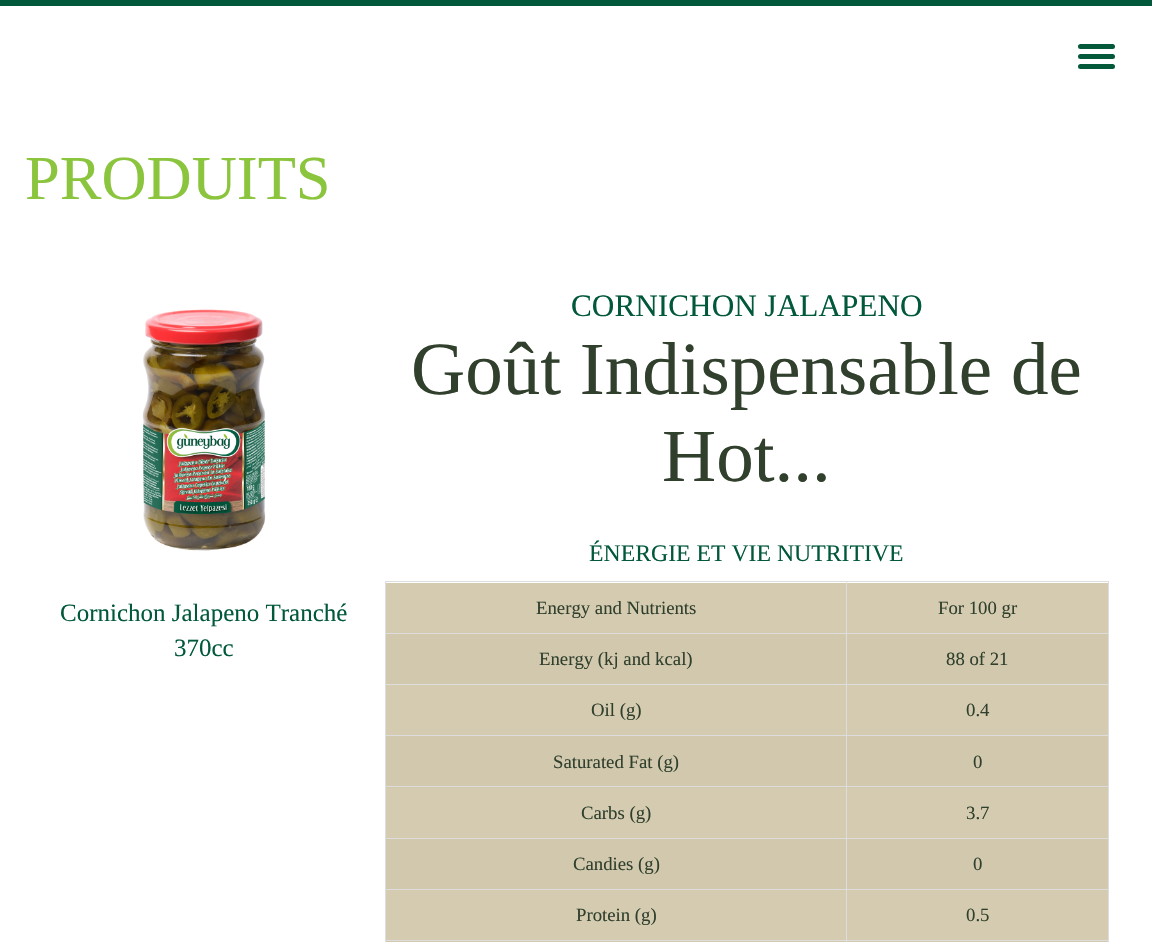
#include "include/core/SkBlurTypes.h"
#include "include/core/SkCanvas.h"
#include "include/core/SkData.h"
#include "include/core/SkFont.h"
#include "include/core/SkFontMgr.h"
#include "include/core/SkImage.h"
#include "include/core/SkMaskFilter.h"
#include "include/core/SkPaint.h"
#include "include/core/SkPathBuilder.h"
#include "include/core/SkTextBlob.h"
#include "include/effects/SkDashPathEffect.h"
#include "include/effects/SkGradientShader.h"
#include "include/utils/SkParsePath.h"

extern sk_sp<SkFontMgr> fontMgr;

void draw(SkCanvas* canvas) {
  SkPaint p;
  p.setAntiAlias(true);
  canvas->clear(SK_ColorWHITE);
  p.setColor(SkColorSetRGB(1, 88, 58));
  canvas->drawRect(SkRect::MakeLTRB(0, 0, 1152, 6), p);
  p.setColor(SkColorSetRGB(4, 89, 59));
  canvas->drawRoundRect(SkRect::MakeLTRB(1078, 54, 1115, 59), 2.5f, 2.5f, p);
  canvas->drawRoundRect(SkRect::MakeLTRB(1078, 44, 1115, 49), 2.5f, 2.5f, p);
  canvas->drawRoundRect(SkRect::MakeLTRB(1078, 64, 1115, 69), 2.5f, 2.5f, p);
  canvas->drawImageRect(SkImages::DeferredFromEncodedData(SkData::MakeFromFileName("images/1.png")), SkRect::MakeLTRB(142, 309, 266, 551), SkSamplingOptions());
  p.setColor(SkColorSetRGB(212, 203, 176));
  canvas->drawRect(SkRect::MakeLTRB(386, 583, 1108, 633), p);
  p.setColor(SkColorSetRGB(221, 221, 221));
  canvas->drawRect(SkRect::MakeLTRB(846, 581, 1109, 582), p);
  canvas->drawRect(SkRect::MakeLTRB(846, 633, 1109, 634), p);
  p.setColor(SkColorSetRGB(209, 200, 173));
  canvas->drawRect(SkRect::MakeLTRB(386, 634, 1108, 684), p);
  p.setColor(SkColorSetRGB(221, 221, 221));
  canvas->drawRect(SkRect::MakeLTRB(846, 684, 1109, 685), p);
  p.setColor(SkColorSetRGB(212, 203, 176));
  canvas->drawRect(SkRect::MakeLTRB(386, 685, 1108, 735), p);
  p.setColor(SkColorSetRGB(221, 221, 221));
  canvas->drawRect(SkRect::MakeLTRB(846, 735, 1109, 736), p);
  p.setColor(SkColorSetRGB(209, 200, 173));
  canvas->drawRect(SkRect::MakeLTRB(386, 736, 1108, 788), p);
  p.setColor(SkColorSetRGB(221, 221, 221));
  canvas->drawRect(SkRect::MakeLTRB(846, 786, 1109, 787), p);
  p.setColor(SkColorSetRGB(212, 203, 176));
  canvas->drawRect(SkRect::MakeLTRB(386, 788, 1108, 838), p);
  p.setColor(SkColorSetRGB(221, 221, 221));
  canvas->drawRect(SkRect::MakeLTRB(846, 838, 1109, 839), p);
  p.setColor(SkColorSetRGB(209, 200, 173));
  canvas->drawRect(SkRect::MakeLTRB(386, 839, 1108, 889), p);
  p.setColor(SkColorSetRGB(221, 221, 221));
  canvas->drawRect(SkRect::MakeLTRB(846, 889, 1109, 890), p);
  p.setColor(SkColorSetRGB(212, 203, 176));
  canvas->drawRect(SkRect::MakeLTRB(386, 890, 1108, 940), p);
  p.setColor(SkColorSetRGB(221, 221, 221));
  canvas->drawRect(SkRect::MakeLTRB(846, 940, 1109, 941), p);
  p.setColor(SkColorSetRGB(209, 200, 173));
  canvas->drawRect(SkRect::MakeLTRB(385, 941, 1109, 942), p);
  p.setColor(SkColorSetRGB(221, 221, 221));
  canvas->drawRect(SkRect::MakeLTRB(846, 940, 847, 942), p);
  canvas->drawRect(SkRect::MakeLTRB(385, 940, 848, 941), p);
  canvas->drawRect(SkRect::MakeLTRB(846, 889, 847, 941), p);
  canvas->drawRect(SkRect::MakeLTRB(385, 889, 848, 890), p);
  canvas->drawRect(SkRect::MakeLTRB(846, 838, 847, 890), p);
  canvas->drawRect(SkRect::MakeLTRB(385, 838, 848, 839), p);
  canvas->drawRect(SkRect::MakeLTRB(846, 786, 847, 839), p);
  canvas->drawRect(SkRect::MakeLTRB(385, 786, 848, 787), p);
  canvas->drawRect(SkRect::MakeLTRB(846, 735, 847, 788), p);
  canvas->drawRect(SkRect::MakeLTRB(385, 735, 848, 736), p);
  canvas->drawRect(SkRect::MakeLTRB(846, 684, 847, 736), p);
  canvas->drawRect(SkRect::MakeLTRB(385, 684, 848, 685), p);
  canvas->drawRect(SkRect::MakeLTRB(846, 633, 847, 685), p);
  canvas->drawRect(SkRect::MakeLTRB(385, 633, 848, 634), p);
  canvas->drawRect(SkRect::MakeLTRB(846, 581, 847, 634), p);
  canvas->drawRect(SkRect::MakeLTRB(385, 581, 848, 582), p);
  canvas->drawRect(SkRect::MakeLTRB(385, 940, 386, 942), p);
  canvas->drawRect(SkRect::MakeLTRB(385, 889, 386, 941), p);
  canvas->drawRect(SkRect::MakeLTRB(385, 838, 386, 890), p);
  canvas->drawRect(SkRect::MakeLTRB(385, 786, 386, 839), p);
  canvas->drawRect(SkRect::MakeLTRB(385, 735, 386, 788), p);
  canvas->drawRect(SkRect::MakeLTRB(385, 684, 386, 736), p);
  canvas->drawRect(SkRect::MakeLTRB(385, 633, 386, 685), p);
  canvas->drawRect(SkRect::MakeLTRB(385, 581, 386, 634), p);
  canvas->drawRect(SkRect::MakeLTRB(1108, 940, 1109, 942), p);
  canvas->drawRect(SkRect::MakeLTRB(1108, 889, 1109, 941), p);
  canvas->drawRect(SkRect::MakeLTRB(1108, 838, 1109, 890), p);
  canvas->drawRect(SkRect::MakeLTRB(1108, 786, 1109, 839), p);
  canvas->drawRect(SkRect::MakeLTRB(1108, 735, 1109, 788), p);
  canvas->drawRect(SkRect::MakeLTRB(1108, 684, 1109, 736), p);
  canvas->drawRect(SkRect::MakeLTRB(1108, 633, 1109, 685), p);
  canvas->drawRect(SkRect::MakeLTRB(1108, 581, 1109, 634), p);
  SkFont font1(fontMgr->matchFamilyStyle("Liberation Serif", SkFontStyle::Normal()), 62.5f);
  font1.setSubpixel(true);
  p.setColor(SkColorSetRGB(139, 197, 62));
  canvas->drawString("PRODUITS", 25, 199, font1, p);
  SkFont font2(fontMgr->matchFamilyStyle("Liberation Serif", SkFontStyle::Normal()), 25);
  font2.setSubpixel(true);
  p.setColor(SkColorSetRGB(1, 88, 58));
  canvas->drawString("Cornichon Jalapeno Tranché", 60, 621, font2, p);
  canvas->drawString("370cc", 174, 656, font2, p);
  SkFont font3(fontMgr->matchFamilyStyle("Liberation Serif", SkFontStyle::Normal()), 31.25f);
  font3.setSubpixel(true);
  canvas->drawString("CORNICHON JALAPENO", 571, 316, font3, p);
  SkFont font4(fontMgr->matchFamilyStyle("Liberation Serif", SkFontStyle::Normal()), 75);
  font4.setSubpixel(true);
  p.setColor(SkColorSetRGB(48, 64, 45));
  canvas->drawString("Goût Indispensable de", 411, 394, font4, p);
  canvas->drawString("Hot...", 662, 481, font4, p);
  SkFont font5(fontMgr->matchFamilyStyle("Liberation Serif", SkFontStyle::Normal()), 23.75f);
  font5.setSubpixel(true);
  p.setColor(SkColorSetRGB(1, 88, 58));
  canvas->drawString("ÉNERGIE ET VIE NUTRITIVE", 589, 561, font5, p);
  SkFont font6(fontMgr->matchFamilyStyle("Liberation Serif", SkFontStyle::Normal()), 18.75f);
  font6.setSubpixel(true);
  p.setColor(SkColorSetRGB(48, 64, 45));
  canvas->drawString("Energy and Nutrients", 536, 614, font6, p);
  canvas->drawString("For 100 gr", 938, 614, font6, p);
  canvas->drawString("Energy (kj and kcal)", 539, 665, font6, p);
  canvas->drawString("88 of 21", 946, 665, font6, p);
  canvas->drawString("Oil (g)", 591, 716, font6, p);
  canvas->drawString("0.4", 966, 716, font6, p);
  canvas->drawString("Saturated Fat (g)", 553, 768, font6, p);
  canvas->drawString("0", 973, 768, font6, p);
  canvas->drawString("Carbs (g)", 581, 819, font6, p);
  canvas->drawString("3.7", 966, 819, font6, p);
  canvas->drawString("Candies (g)", 573, 870, font6, p);
  canvas->drawString("0", 973, 870, font6, p);
  canvas->drawString("Protein (g)", 576, 921, font6, p);
  canvas->drawString("0.5", 966, 921, font6, p);
}
